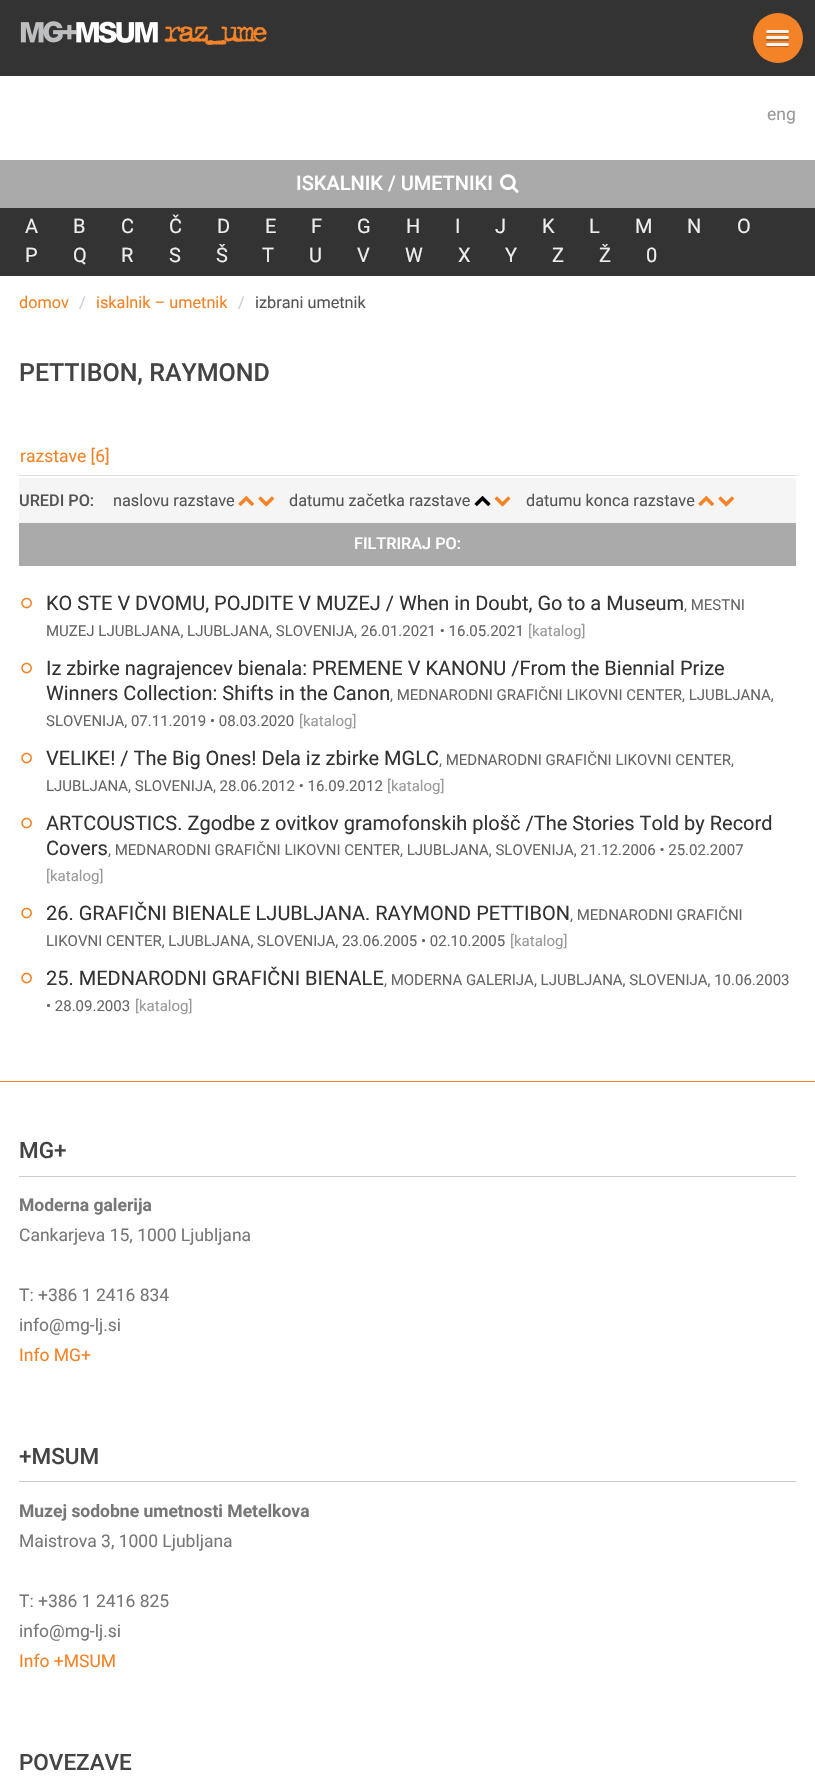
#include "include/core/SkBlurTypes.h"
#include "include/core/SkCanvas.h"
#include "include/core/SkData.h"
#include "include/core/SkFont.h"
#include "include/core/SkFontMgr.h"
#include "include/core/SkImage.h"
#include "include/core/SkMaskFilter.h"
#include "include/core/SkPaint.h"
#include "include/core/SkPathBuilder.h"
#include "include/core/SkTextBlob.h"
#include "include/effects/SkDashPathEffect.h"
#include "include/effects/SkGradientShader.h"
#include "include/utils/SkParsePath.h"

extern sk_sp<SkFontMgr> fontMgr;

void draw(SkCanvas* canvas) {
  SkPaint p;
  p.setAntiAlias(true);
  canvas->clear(SK_ColorWHITE);
  p.setColor(SkColorSetRGB(51, 51, 51));
  canvas->drawRect(SkRect::MakeLTRB(0, 0, 815, 76), p);
  canvas->drawImageRect(SkImages::DeferredFromEncodedData(SkData::MakeFromFileName("images/1.png")), SkRect::MakeLTRB(20, 21, 267, 45), SkSamplingOptions());
  p.setColor(SkColorSetRGB(244, 131, 39));
  canvas->drawCircle(778, 38, 25, p);
  p.setColor(SkColorSetRGB(183, 98, 29));
  canvas->drawPath(SkPathBuilder().moveTo(766.5f, 31.5f).cubicTo(764, 34.5f, 770.5f, 34, 771, 34).lineTo(784, 34).cubicTo(784.5f, 34, 791, 34.5f, 788.5f, 31.5f).cubicTo(788.5f, 32, 788, 32.5f, 787.5f, 32.5f).lineTo(767.5f, 32.5f).cubicTo(767, 32.5f, 766.5f, 32, 766.5f, 31.5f).close().detach(), p);
  p.setColor(SkColorSetRGB(245, 245, 245));
  canvas->drawRoundRect(SkRect::MakeLTRB(766, 30, 789, 33), 1.5f, 1.5f, p);
  p.setColor(SkColorSetRGB(183, 98, 29));
  canvas->drawPath(SkPathBuilder().moveTo(766.5f, 38.5f).cubicTo(766, 38.5f, 766, 39.5f, 766, 40).cubicTo(766.5f, 42, 770, 41, 771, 41).lineTo(788, 41).cubicTo(789, 40.5f, 789.5f, 39, 788.5f, 38.5f).cubicTo(787.5f, 39, 767.5f, 39, 766.5f, 38.5f).close().detach(), p);
  p.setColor(SkColorSetRGB(245, 245, 245));
  canvas->drawRoundRect(SkRect::MakeLTRB(766, 36, 789, 39), 1.5f, 1.5f, p);
  p.setColor(SkColorSetRGB(183, 98, 29));
  canvas->drawPath(SkPathBuilder().moveTo(766.5f, 44.5f).lineTo(766, 46).cubicTo(766.5f, 48, 770, 47, 771, 47).lineTo(784, 47).cubicTo(785, 47, 788.5f, 48, 789, 46).lineTo(788.5f, 44.5f).lineTo(787.5f, 45).lineTo(767.5f, 45).close().detach(), p);
  p.setColor(SkColorSetRGB(245, 245, 245));
  canvas->drawRoundRect(SkRect::MakeLTRB(766, 43, 789, 46), 1.5f, 1.5f, p);
  p.setColor(SkColorSetRGB(170, 170, 170));
  canvas->drawRect(SkRect::MakeLTRB(0, 160, 815, 208), p);
  canvas->drawImageRect(SkImages::DeferredFromEncodedData(SkData::MakeFromFileName("images/2.png")), SkRect::MakeLTRB(500, 174, 519, 193), SkSamplingOptions());
  p.setColor(SkColorSetRGB(51, 51, 51));
  canvas->drawRect(SkRect::MakeLTRB(0, 208, 815, 276), p);
  p.setColor(SkColorSetRGB(221, 221, 221));
  canvas->drawRect(SkRect::MakeLTRB(19, 475, 796, 476), p);
  p.setColor(SkColorSetRGB(245, 245, 245));
  canvas->drawRect(SkRect::MakeLTRB(19, 478, 796, 523), p);
  canvas->drawImageRect(SkImages::DeferredFromEncodedData(SkData::MakeFromFileName("images/3.png")), SkRect::MakeLTRB(238, 496, 255, 506), SkSamplingOptions());
  canvas->drawImageRect(SkImages::DeferredFromEncodedData(SkData::MakeFromFileName("images/4.png")), SkRect::MakeLTRB(258, 496, 275, 507), SkSamplingOptions());
  canvas->drawImageRect(SkImages::DeferredFromEncodedData(SkData::MakeFromFileName("images/5.png")), SkRect::MakeLTRB(474, 496, 491, 506), SkSamplingOptions());
  canvas->drawImageRect(SkImages::DeferredFromEncodedData(SkData::MakeFromFileName("images/6.png")), SkRect::MakeLTRB(494, 496, 511, 507), SkSamplingOptions());
  canvas->drawImageRect(SkImages::DeferredFromEncodedData(SkData::MakeFromFileName("images/3.png")), SkRect::MakeLTRB(698, 496, 715, 506), SkSamplingOptions());
  canvas->drawImageRect(SkImages::DeferredFromEncodedData(SkData::MakeFromFileName("images/4.png")), SkRect::MakeLTRB(718, 496, 735, 507), SkSamplingOptions());
  p.setColor(SkColorSetRGB(170, 170, 170));
  canvas->drawRect(SkRect::MakeLTRB(19, 523, 796, 566), p);
  canvas->drawImageRect(SkImages::DeferredFromEncodedData(SkData::MakeFromFileName("images/7.png")), SkRect::MakeLTRB(21, 597, 32, 609), SkSamplingOptions());
  canvas->drawImageRect(SkImages::DeferredFromEncodedData(SkData::MakeFromFileName("images/7.png")), SkRect::MakeLTRB(21, 662, 32, 674), SkSamplingOptions());
  canvas->drawImageRect(SkImages::DeferredFromEncodedData(SkData::MakeFromFileName("images/7.png")), SkRect::MakeLTRB(21, 752, 32, 764), SkSamplingOptions());
  canvas->drawImageRect(SkImages::DeferredFromEncodedData(SkData::MakeFromFileName("images/7.png")), SkRect::MakeLTRB(21, 817, 32, 829), SkSamplingOptions());
  canvas->drawImageRect(SkImages::DeferredFromEncodedData(SkData::MakeFromFileName("images/7.png")), SkRect::MakeLTRB(21, 907, 32, 919), SkSamplingOptions());
  canvas->drawImageRect(SkImages::DeferredFromEncodedData(SkData::MakeFromFileName("images/7.png")), SkRect::MakeLTRB(21, 972, 32, 984), SkSamplingOptions());
  p.setColor(SkColorSetRGB(244, 131, 39));
  canvas->drawRect(SkRect::MakeLTRB(0, 1081, 815, 1082), p);
  p.setColor(SkColorSetRGB(204, 204, 204));
  canvas->drawRect(SkRect::MakeLTRB(19, 1176, 796, 1177), p);
  canvas->drawRect(SkRect::MakeLTRB(19, 1481, 796, 1482), p);
  SkFont font1(fontMgr->matchFamilyStyle("Roboto", SkFontStyle::Normal()), 17.5f);
  font1.setSubpixel(true);
  p.setColor(SkColorSetRGB(153, 153, 153));
  canvas->drawString("eng", 767, 120, font1, p);
  SkFont font2(fontMgr->matchFamilyStyle("Roboto", SkFontStyle(500, SkFontStyle::kNormal_Width, SkFontStyle::kUpright_Slant)), 20);
  font2.setSubpixel(true);
  p.setColor(SK_ColorWHITE);
  canvas->drawString("ISKALNIK / UMETNIKI", 296, 190, font2, p);
  SkFont font3(fontMgr->matchFamilyStyle("Roboto", SkFontStyle::Normal()), 20);
  font3.setSubpixel(true);
  p.setColor(SkColorSetRGB(238, 238, 238));
  canvas->drawString("A", 25, 233, font3, p);
  canvas->drawString("B", 73, 233, font3, p);
  canvas->drawString("C", 121, 233, font3, p);
  canvas->drawString("Č", 169, 233, font3, p);
  canvas->drawString("D", 217, 233, font3, p);
  canvas->drawString("E", 265, 233, font3, p);
  canvas->drawString("F", 311, 233, font3, p);
  canvas->drawString("G", 357, 233, font3, p);
  canvas->drawString("H", 406, 233, font3, p);
  canvas->drawString("I", 455, 233, font3, p);
  canvas->drawString("J", 495, 233, font3, p);
  canvas->drawString("K", 542, 233, font3, p);
  canvas->drawString("L", 589, 233, font3, p);
  canvas->drawString("M", 635, 233, font3, p);
  canvas->drawString("N", 687, 233, font3, p);
  canvas->drawString("O", 737, 233, font3, p);
  canvas->drawString("P", 25, 262, font3, p);
  canvas->drawString("Q", 73, 262, font3, p);
  canvas->drawString("R", 121, 262, font3, p);
  canvas->drawString("S", 169, 262, font3, p);
  canvas->drawString("Š", 216, 262, font3, p);
  canvas->drawString("T", 262, 262, font3, p);
  canvas->drawString("U", 309, 262, font3, p);
  canvas->drawString("V", 357, 262, font3, p);
  canvas->drawString("W", 405, 262, font3, p);
  canvas->drawString("X", 458, 262, font3, p);
  canvas->drawString("Y", 505, 262, font3, p);
  canvas->drawString("Z", 552, 262, font3, p);
  canvas->drawString("Ž", 599, 262, font3, p);
  canvas->drawString("0", 646, 262, font3, p);
  SkFont font4(fontMgr->matchFamilyStyle("Roboto", SkFontStyle::Normal()), 16.25f);
  font4.setSubpixel(true);
  p.setColor(SkColorSetRGB(244, 131, 39));
  canvas->drawString("domov", 19, 308, font4, p);
  p.setColor(SkColorSetRGB(204, 204, 204));
  canvas->drawString("/", 79, 308, font4, p);
  p.setColor(SkColorSetRGB(244, 131, 39));
  canvas->drawString("iskalnik – umetnik", 96, 308, font4, p);
  p.setColor(SkColorSetRGB(204, 204, 204));
  canvas->drawString("/", 238, 308, font4, p);
  p.setColor(SkColorSetRGB(85, 85, 85));
  canvas->drawString("izbrani umetnik", 255, 308, font4, p);
  SkFont font5(fontMgr->matchFamilyStyle("Roboto", SkFontStyle(500, SkFontStyle::kNormal_Width, SkFontStyle::kUpright_Slant)), 25);
  font5.setSubpixel(true);
  p.setColor(SkColorSetRGB(68, 68, 68));
  canvas->drawString("PETTIBON, RAYMOND", 19, 381, font5, p);
  p.setColor(SkColorSetRGB(244, 131, 39));
  canvas->drawString("razstave [6]", 20, 462, font1, p);
  SkFont font6(fontMgr->matchFamilyStyle("Roboto", SkFontStyle(500, SkFontStyle::kNormal_Width, SkFontStyle::kUpright_Slant)), 16.25f);
  font6.setSubpixel(true);
  p.setColor(SkColorSetRGB(85, 85, 85));
  canvas->drawString("UREDI PO:", 19, 506, font6, p);
  canvas->drawString("naslovu razstave", 113, 506, font4, p);
  canvas->drawString("datumu začetka razstave", 289, 506, font4, p);
  canvas->drawString("datumu konca razstave", 526, 506, font4, p);
  p.setColor(SK_ColorWHITE);
  canvas->drawString("FILTRIRAJ PO:", 354, 549, font6, p);
  p.setColor(SkColorSetRGB(51, 51, 51));
  canvas->drawString("KO STE V DVOMU, POJDITE V MUZEJ / When in Doubt, Go to a Museum", 46, 610, font3, p);
  SkFont font7(fontMgr->matchFamilyStyle("Roboto", SkFontStyle::Normal()), 15);
  font7.setSubpixel(true);
  p.setColor(SkColorSetRGB(102, 102, 102));
  canvas->drawString(", MESTNI", 684, 610, font7, p);
  canvas->drawString("MUZEJ LJUBLJANA, LJUBLJANA, SLOVENIJA, 26.01.2021 • 16.05.2021", 46, 636, font7, p);
  p.setColor(SkColorSetRGB(153, 153, 153));
  canvas->drawString("[katalog]", 528, 636, font7, p);
  p.setColor(SkColorSetRGB(51, 51, 51));
  canvas->drawString("Iz zbirke nagrajencev bienala: PREMENE V KANONU /From the Biennial Prize", 46, 675, font3, p);
  canvas->drawString("Winners Collection: Shifts in the Canon", 46, 700, font3, p);
  p.setColor(SkColorSetRGB(102, 102, 102));
  canvas->drawString(", MEDNARODNI GRAFIČNI LIKOVNI CENTER, LJUBLJANA,", 390, 700, font7, p);
  canvas->drawString("SLOVENIJA, 07.11.2019 • 08.03.2020", 46, 726, font7, p);
  p.setColor(SkColorSetRGB(153, 153, 153));
  canvas->drawString("[katalog]", 299, 726, font7, p);
  p.setColor(SkColorSetRGB(51, 51, 51));
  canvas->drawString("VELIKE! / The Big Ones! Dela iz zbirke MGLC", 46, 765, font3, p);
  p.setColor(SkColorSetRGB(102, 102, 102));
  canvas->drawString(", MEDNARODNI GRAFIČNI LIKOVNI CENTER,", 439, 765, font7, p);
  canvas->drawString("LJUBLJANA, SLOVENIJA, 28.06.2012 • 16.09.2012", 46, 791, font7, p);
  p.setColor(SkColorSetRGB(153, 153, 153));
  canvas->drawString("[katalog]", 387, 791, font7, p);
  p.setColor(SkColorSetRGB(51, 51, 51));
  canvas->drawString("ARTCOUSTICS. Zgodbe z ovitkov gramofonskih plošč /The Stories Told by Record", 46, 830, font3, p);
  canvas->drawString("Covers", 46, 855, font3, p);
  p.setColor(SkColorSetRGB(102, 102, 102));
  canvas->drawString(", MEDNARODNI GRAFIČNI LIKOVNI CENTER, LJUBLJANA, SLOVENIJA, 21.12.2006 • 25.02.2007", 108, 855, font7, p);
  p.setColor(SkColorSetRGB(153, 153, 153));
  canvas->drawString("[katalog]", 46, 881, font7, p);
  p.setColor(SkColorSetRGB(51, 51, 51));
  canvas->drawString("26. GRAFIČNI BIENALE LJUBLJANA. RAYMOND PETTIBON", 46, 920, font3, p);
  p.setColor(SkColorSetRGB(102, 102, 102));
  canvas->drawString(", MEDNARODNI GRAFIČNI", 570, 920, font7, p);
  canvas->drawString("LIKOVNI CENTER, LJUBLJANA, SLOVENIJA, 23.06.2005 • 02.10.2005", 46, 946, font7, p);
  p.setColor(SkColorSetRGB(153, 153, 153));
  canvas->drawString("[katalog]", 510, 946, font7, p);
  p.setColor(SkColorSetRGB(51, 51, 51));
  canvas->drawString("25. MEDNARODNI GRAFIČNI BIENALE", 46, 985, font3, p);
  p.setColor(SkColorSetRGB(102, 102, 102));
  canvas->drawString(", MODERNA GALERIJA, LJUBLJANA, SLOVENIJA, 10.06.2003", 384, 985, font7, p);
  canvas->drawString("• 28.09.2003", 46, 1011, font7, p);
  p.setColor(SkColorSetRGB(153, 153, 153));
  canvas->drawString("[katalog]", 135, 1011, font7, p);
  SkFont font8(fontMgr->matchFamilyStyle("Roboto", SkFontStyle(500, SkFontStyle::kNormal_Width, SkFontStyle::kUpright_Slant)), 22.5f);
  font8.setSubpixel(true);
  p.setColor(SkColorSetRGB(68, 68, 68));
  canvas->drawString("MG+", 19, 1158, font8, p);
  SkFont font9(fontMgr->matchFamilyStyle("Roboto", SkFontStyle::Bold()), 17.5f);
  font9.setSubpixel(true);
  p.setColor(SkColorSetRGB(119, 119, 119));
  canvas->drawString("Moderna galerija", 19, 1211, font9, p);
  canvas->drawString("Cankarjeva 15, 1000 Ljubljana", 19, 1241, font1, p);
  canvas->drawString("T: +386 1 2416 834", 19, 1301, font1, p);
  canvas->drawString("info@mg-lj.si", 19, 1331, font1, p);
  p.setColor(SkColorSetRGB(244, 131, 39));
  canvas->drawString("Info MG+", 19, 1361, font1, p);
  p.setColor(SkColorSetRGB(68, 68, 68));
  canvas->drawString("+MSUM", 19, 1464, font8, p);
  p.setColor(SkColorSetRGB(119, 119, 119));
  canvas->drawString("Muzej sodobne umetnosti Metelkova", 19, 1517, font9, p);
  canvas->drawString("Maistrova 3, 1000 Ljubljana", 19, 1547, font1, p);
  canvas->drawString("T: +386 1 2416 825", 19, 1607, font1, p);
  canvas->drawString("info@mg-lj.si", 19, 1637, font1, p);
  p.setColor(SkColorSetRGB(244, 131, 39));
  canvas->drawString("Info +MSUM", 19, 1667, font1, p);
  p.setColor(SkColorSetRGB(68, 68, 68));
  canvas->drawString("POVEZAVE", 19, 1770, font8, p);
}
